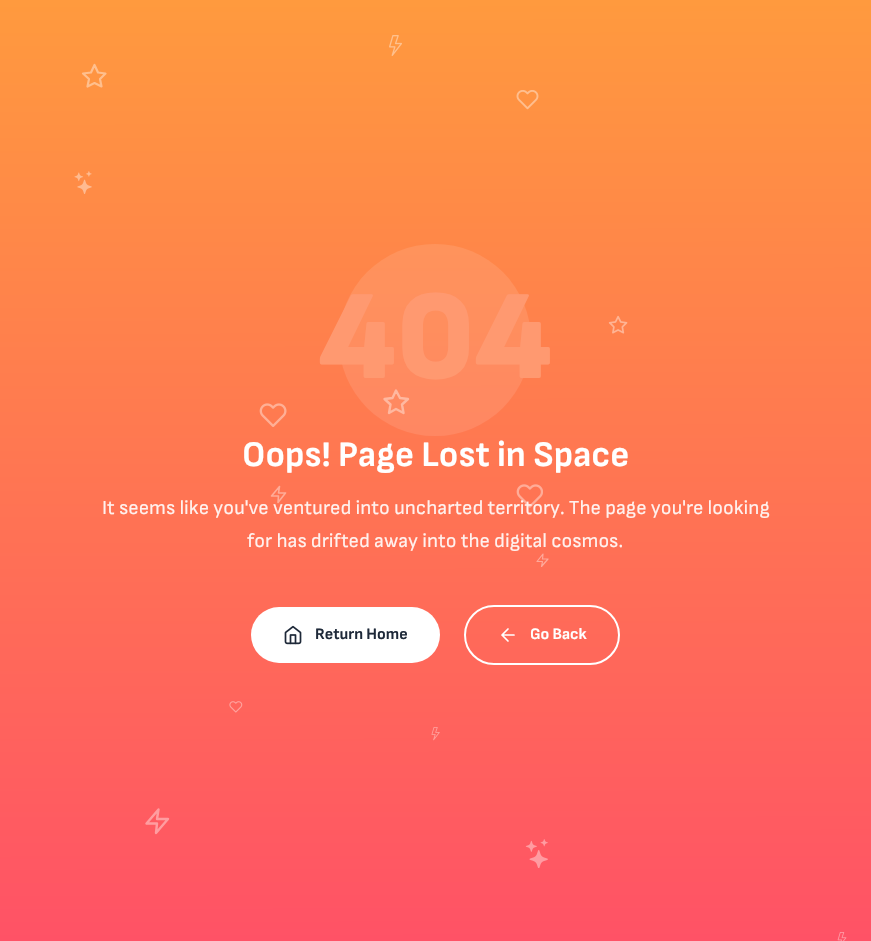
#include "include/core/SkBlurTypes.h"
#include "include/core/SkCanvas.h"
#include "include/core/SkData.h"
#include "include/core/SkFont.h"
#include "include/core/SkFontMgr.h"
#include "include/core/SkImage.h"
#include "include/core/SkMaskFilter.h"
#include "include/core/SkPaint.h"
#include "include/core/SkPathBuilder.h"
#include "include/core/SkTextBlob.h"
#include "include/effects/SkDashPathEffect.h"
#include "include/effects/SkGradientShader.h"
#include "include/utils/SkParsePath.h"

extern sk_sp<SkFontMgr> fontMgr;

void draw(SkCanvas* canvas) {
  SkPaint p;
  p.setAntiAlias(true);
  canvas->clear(SK_ColorWHITE);
  {
    const SkColor colors[] = {SkColorSetRGB(255, 154, 62), SkColorSetRGB(255, 82, 102)};
    const float stops[] = {0, 1};
    const SkPoint ends[] = {{435, 0}, {436, 941}};
    p.setShader(SkGradientShader::MakeLinear(ends, colors, stops, 2, SkTileMode::kClamp));
    p.setAlpha(255);
  }
  canvas->drawRect(SkRect::MakeLTRB(0, 0, 871, 941), p);
  canvas->drawImageRect(SkImages::DeferredFromEncodedData(SkData::MakeFromFileName("images/1.png")), SkRect::MakeLTRB(389, 35, 402, 56), SkSamplingOptions());
  p.setStyle(SkPaint::kStroke_Style);
  p.setStrokeWidth(2.2f);
  p.setStrokeCap(SkPaint::kRound_Cap);
  p.setStrokeJoin(SkPaint::kRound_Join);
  p.setShader(nullptr);
  p.setColor(SkColorSetRGB(255, 191, 141));
  canvas->drawPath(SkPathBuilder().moveTo(94.5f, 65).lineTo(98, 72.5f).lineTo(105.5f, 73.5f).lineTo(100, 79).lineTo(101.5f, 86.5f).lineTo(94.5f, 83).lineTo(87.5f, 86.5f).lineTo(89, 79).lineTo(83, 73.5f).lineTo(91, 72.5f).close().detach(), p);
  canvas->drawImageRect(SkImages::DeferredFromEncodedData(SkData::MakeFromFileName("images/2.png")), SkRect::MakeLTRB(516, 90, 539, 110), SkSamplingOptions());
  canvas->drawImageRect(SkImages::DeferredFromEncodedData(SkData::MakeFromFileName("images/3.png")), SkRect::MakeLTRB(74, 171, 92, 194), SkSamplingOptions());
  canvas->drawImageRect(SkImages::DeferredFromEncodedData(SkData::MakeFromFileName("images/4.png")), SkRect::MakeLTRB(608, 315, 628, 334), SkSamplingOptions());
  canvas->drawImageRect(SkImages::DeferredFromEncodedData(SkData::MakeFromFileName("images/5.png")), SkRect::MakeLTRB(259, 403, 287, 427), SkSamplingOptions());
  p.setStrokeWidth(2.4f);
  p.setColor(SkColorSetRGB(255, 176, 149));
  canvas->drawPath(SkPathBuilder().moveTo(396, 390.5f).lineTo(400, 398).lineTo(408, 399).lineTo(402, 404.5f).lineTo(403.5f, 413).lineTo(396, 409).lineTo(389, 413).lineTo(390.5f, 404.5f).lineTo(384.5f, 399).lineTo(392.5f, 398).close().detach(), p);
  p.setStrokeWidth(1.6f);
  p.setColor(SkColorSetRGB(255, 172, 152));
  canvas->drawPath(SkPathBuilder().moveTo(279.5f, 486.5f).lineTo(271.5f, 496).lineTo(278.5f, 496).lineTo(278, 502.5f).lineTo(285.5f, 493).lineTo(278.5f, 493).close().detach(), p);
  canvas->drawImageRect(SkImages::DeferredFromEncodedData(SkData::MakeFromFileName("images/6.png")), SkRect::MakeLTRB(516, 484, 543, 508), SkSamplingOptions());
  p.setStrokeWidth(1.2f);
  p.setColor(SkColorSetRGB(255, 169, 154));
  canvas->drawPath(SkPathBuilder().moveTo(543, 554).lineTo(537, 561.5f).lineTo(542.5f, 561.5f).lineTo(541.5f, 566.5f).lineTo(548, 559).lineTo(542.5f, 559).close().detach(), p);
  canvas->drawImageRect(SkImages::DeferredFromEncodedData(SkData::MakeFromFileName("images/7.png")), SkRect::MakeLTRB(229, 701, 243, 713), SkSamplingOptions());
  canvas->drawImageRect(SkImages::DeferredFromEncodedData(SkData::MakeFromFileName("images/8.png")), SkRect::MakeLTRB(431, 727, 440, 741), SkSamplingOptions());
  p.setStrokeWidth(2.4f);
  p.setColor(SkColorSetRGB(255, 157, 160));
  canvas->drawPath(SkPathBuilder().moveTo(158.5f, 809.5f).lineTo(146.5f, 823.5f).lineTo(157, 823.5f).lineTo(156, 833).lineTo(168, 819).lineTo(157, 819).close().detach(), p);
  canvas->drawImageRect(SkImages::DeferredFromEncodedData(SkData::MakeFromFileName("images/9.png")), SkRect::MakeLTRB(525, 839, 548, 868), SkSamplingOptions());
  canvas->drawImageRect(SkImages::DeferredFromEncodedData(SkData::MakeFromFileName("images/10.png")), SkRect::MakeLTRB(837, 932, 847, 941), SkSamplingOptions());
  p.setStyle(SkPaint::kFill_Style);
  p.setColor(SkColorSetARGB(26, 255, 255, 255));
  canvas->drawCircle(435, 340, 96, p);
  p.setColor(SK_ColorWHITE);
  canvas->drawRoundRect(SkRect::MakeLTRB(251, 607, 440, 663), 28, 28, p);
  canvas->drawImageRect(SkImages::DeferredFromEncodedData(SkData::MakeFromFileName("images/11.png")), SkRect::MakeLTRB(284, 625, 302, 645), SkSamplingOptions());
  p.setStyle(SkPaint::kStroke_Style);
  p.setStrokeWidth(2);
  p.setStrokeCap(SkPaint::kButt_Cap);
  p.setStrokeJoin(SkPaint::kMiter_Join);
  canvas->drawRoundRect(SkRect::MakeLTRB(465, 606, 619, 664), 29, 29, p);
  p.setStrokeWidth(1.7f);
  p.setStrokeCap(SkPaint::kRound_Cap);
  p.setStrokeJoin(SkPaint::kRound_Join);
  canvas->drawPath(SkPathBuilder().moveTo(514, 635).lineTo(502, 635).moveTo(508, 641).lineTo(502, 635).lineTo(508, 629).detach(), p);
  SkFont font1(fontMgr->matchFamilyStyle("Sofia Sans", SkFontStyle(900, SkFontStyle::kNormal_Width, SkFontStyle::kUpright_Slant)), 128);
  font1.setSubpixel(true);
  p.setStyle(SkPaint::kFill_Style);
  p.setColor(SkColorSetRGB(255, 153, 112));
  canvas->drawString("404", 319, 378, font1, p);
  SkFont font2(fontMgr->matchFamilyStyle("Sofia Sans", SkFontStyle::Bold()), 36);
  font2.setSubpixel(true);
  p.setColor(SK_ColorWHITE);
  canvas->drawString("Oops! Page Lost in Space", 242, 466, font2, p);
  SkFont font3(fontMgr->matchFamilyStyle("Sofia Sans", SkFontStyle::Normal()), 20);
  font3.setSubpixel(true);
  p.setColor(SkColorSetRGB(255, 241, 238));
  canvas->drawString("It seems like you've ventured into uncharted territory. The page you're looking", 102, 514, font3, p);
  canvas->drawString("for has drifted away into the digital cosmos.", 247, 547, font3, p);
  SkFont font4(fontMgr->matchFamilyStyle("Sofia Sans", SkFontStyle::Bold()), 16);
  font4.setSubpixel(true);
  p.setColor(SkColorSetRGB(30, 41, 57));
  canvas->drawString("Return Home", 315, 639, font4, p);
  p.setColor(SK_ColorWHITE);
  canvas->drawString("Go Back", 530, 639, font4, p);
}
